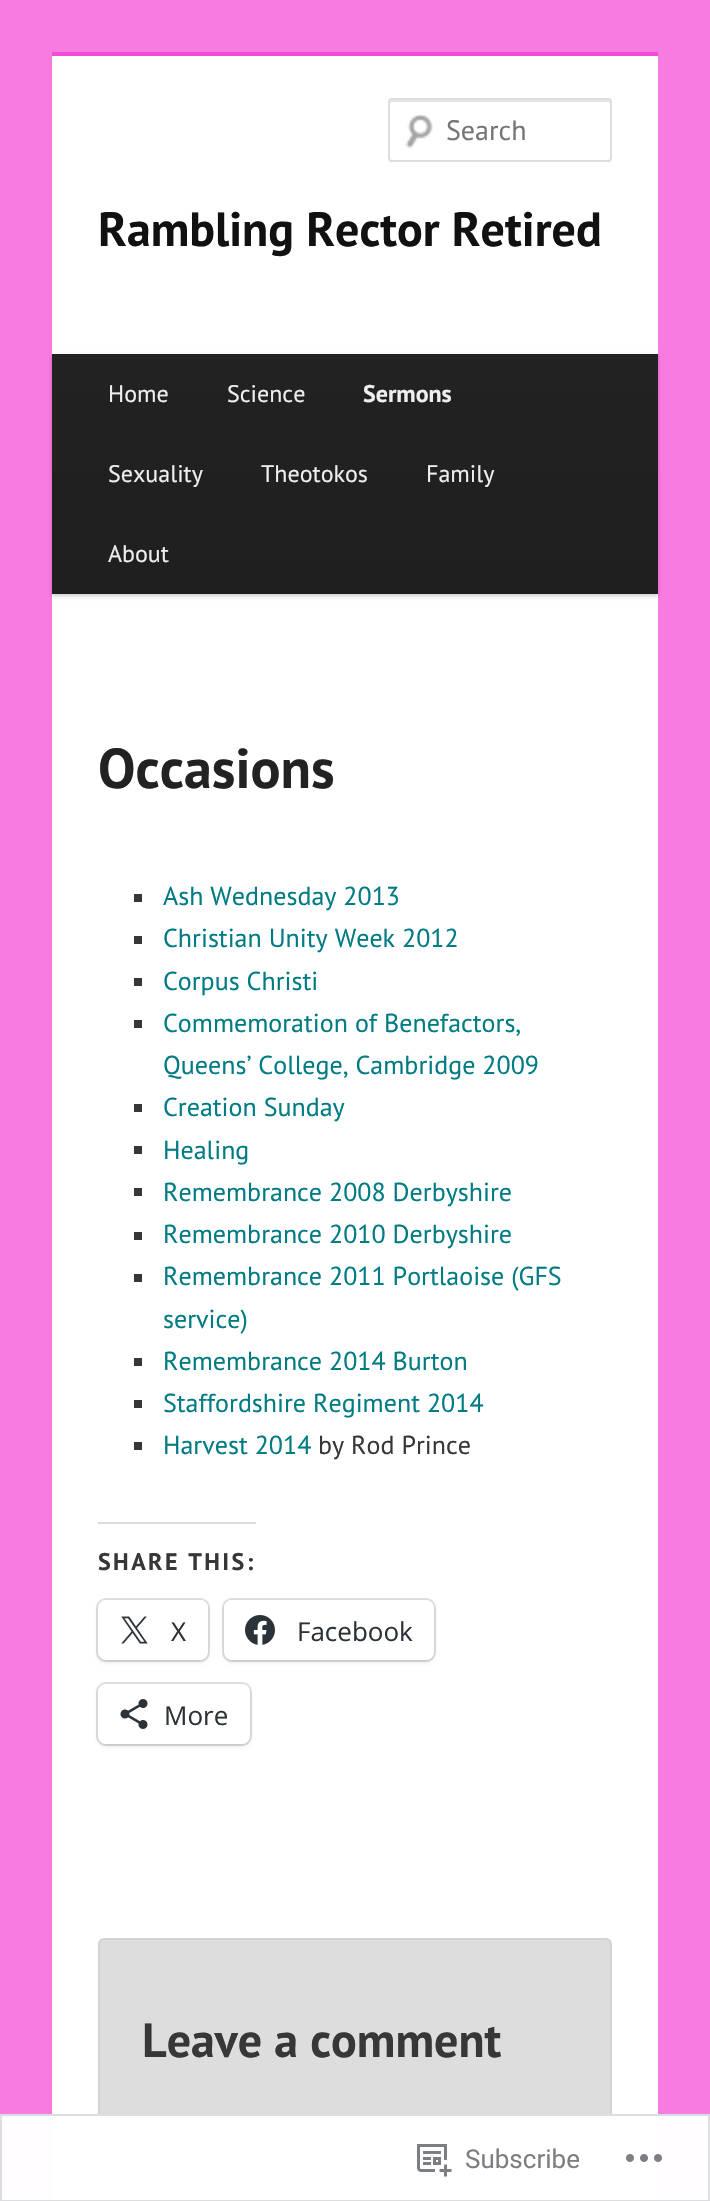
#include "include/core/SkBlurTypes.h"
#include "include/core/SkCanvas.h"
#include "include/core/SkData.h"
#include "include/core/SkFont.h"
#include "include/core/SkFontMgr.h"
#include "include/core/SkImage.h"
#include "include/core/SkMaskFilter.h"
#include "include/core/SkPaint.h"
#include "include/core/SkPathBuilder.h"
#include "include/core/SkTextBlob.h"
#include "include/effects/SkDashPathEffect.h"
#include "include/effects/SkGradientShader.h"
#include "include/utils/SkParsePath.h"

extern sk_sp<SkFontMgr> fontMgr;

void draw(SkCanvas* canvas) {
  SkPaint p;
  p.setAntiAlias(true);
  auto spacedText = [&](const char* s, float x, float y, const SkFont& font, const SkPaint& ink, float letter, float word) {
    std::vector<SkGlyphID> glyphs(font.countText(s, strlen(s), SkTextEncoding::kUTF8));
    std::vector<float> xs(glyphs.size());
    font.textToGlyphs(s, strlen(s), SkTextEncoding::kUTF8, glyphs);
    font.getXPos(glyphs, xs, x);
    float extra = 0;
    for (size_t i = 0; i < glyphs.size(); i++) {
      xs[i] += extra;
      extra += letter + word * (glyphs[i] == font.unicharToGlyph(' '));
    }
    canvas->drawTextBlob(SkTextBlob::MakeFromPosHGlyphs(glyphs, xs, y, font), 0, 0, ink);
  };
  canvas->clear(SkColorSetRGB(248, 123, 225));
  p.setColor(SK_ColorWHITE);
  canvas->drawRect(SkRect::MakeLTRB(52, 56, 658, 2182), p);
  p.setColor(SkColorSetRGB(245, 75, 214));
  canvas->drawRect(SkRect::MakeLTRB(52, 52, 658, 56), p);
  canvas->drawImageRect(SkImages::DeferredFromEncodedData(SkData::MakeFromFileName("images/1.png")), SkRect::MakeLTRB(405, 114, 433, 149), SkSamplingOptions());
  p.setColor(SkColorSetRGB(230, 230, 230));
  canvas->drawPath(SkPathBuilder().moveTo(392, 102).lineTo(608, 102).cubicTo(609, 102, 610, 103, 610, 104).lineTo(610, 102).cubicTo(610, 101, 609, 100, 608, 100).lineTo(392, 100).cubicTo(391, 100, 390, 101, 390, 102).lineTo(390, 104).cubicTo(390, 103, 391, 102, 392, 102).close().detach(), p);
  p.setStyle(SkPaint::kStroke_Style);
  p.setStrokeWidth(2);
  p.setColor(SkColorSetRGB(221, 221, 221));
  canvas->drawRoundRect(SkRect::MakeLTRB(389, 99, 611, 161), 3, 3, p);
  p.setStyle(SkPaint::kFill_Style);
  p.setColor(SkColorSetARGB(51, 0, 0, 0));
  p.setMaskFilter(SkMaskFilter::MakeBlur(kNormal_SkBlurStyle, 2));
  canvas->drawRect(SkRect::MakeLTRB(52, 356, 658, 596), p);
  p.setMaskFilter(nullptr);
  {
    const SkColor colors[] = {SkColorSetRGB(34, 34, 34), SkColorSetRGB(31, 31, 31)};
    const float stops[] = {0, 1};
    const SkPoint ends[] = {{355, 354}, {355, 594}};
    p.setShader(SkGradientShader::MakeLinear(ends, colors, stops, 2, SkTileMode::kClamp));
    p.setAlpha(255);
  }
  canvas->drawRect(SkRect::MakeLTRB(52, 354, 658, 594), p);
  p.setShader(nullptr);
  p.setColor(SkColorSetRGB(55, 55, 55));
  canvas->drawRect(SkRect::MakeLTRB(134, 894, 142, 902), p);
  canvas->drawRect(SkRect::MakeLTRB(134, 936, 142, 944), p);
  canvas->drawRect(SkRect::MakeLTRB(134, 978, 142, 986), p);
  canvas->drawRect(SkRect::MakeLTRB(134, 1020, 142, 1028), p);
  canvas->drawRect(SkRect::MakeLTRB(134, 1104, 142, 1112), p);
  canvas->drawRect(SkRect::MakeLTRB(134, 1146, 142, 1154), p);
  canvas->drawRect(SkRect::MakeLTRB(134, 1188, 142, 1196), p);
  canvas->drawRect(SkRect::MakeLTRB(134, 1232, 142, 1240), p);
  canvas->drawRect(SkRect::MakeLTRB(134, 1274, 142, 1282), p);
  canvas->drawRect(SkRect::MakeLTRB(134, 1358, 142, 1366), p);
  canvas->drawRect(SkRect::MakeLTRB(134, 1400, 142, 1408), p);
  canvas->drawRect(SkRect::MakeLTRB(134, 1442, 142, 1450), p);
  p.setColor(SkColorSetRGB(220, 220, 222));
  canvas->drawRect(SkRect::MakeLTRB(98, 1522, 256, 1524), p);
  p.setStyle(SkPaint::kStroke_Style);
  p.setColor(SkColorSetRGB(224, 224, 224));
  canvas->drawRoundRect(SkRect::MakeLTRB(97, 1599, 209, 1661), 9, 9, p);
  p.setStyle(SkPaint::kFill_Style);
  p.setColor(SkColorSetARGB(31, 0, 0, 0));
  p.setMaskFilter(SkMaskFilter::MakeBlur(kNormal_SkBlurStyle, 2));
  canvas->drawRoundRect(SkRect::MakeLTRB(98, 1602, 208, 1662), 8, 8, p);
  p.setMaskFilter(nullptr);
  p.setColor(SK_ColorWHITE);
  canvas->drawRoundRect(SkRect::MakeLTRB(98, 1600, 208, 1660), 8, 8, p);
  canvas->drawImageRect(SkImages::DeferredFromEncodedData(SkData::MakeFromFileName("images/2.png")), SkRect::MakeLTRB(121, 1616, 148, 1644), SkSamplingOptions());
  p.setStyle(SkPaint::kStroke_Style);
  p.setColor(SkColorSetRGB(224, 224, 224));
  canvas->drawRoundRect(SkRect::MakeLTRB(223, 1599, 435, 1661), 9, 9, p);
  p.setStyle(SkPaint::kFill_Style);
  p.setColor(SkColorSetARGB(31, 0, 0, 0));
  p.setMaskFilter(SkMaskFilter::MakeBlur(kNormal_SkBlurStyle, 2));
  canvas->drawRoundRect(SkRect::MakeLTRB(224, 1602, 434, 1662), 8, 8, p);
  p.setMaskFilter(nullptr);
  p.setColor(SK_ColorWHITE);
  canvas->drawRoundRect(SkRect::MakeLTRB(224, 1600, 434, 1660), 8, 8, p);
  canvas->drawImageRect(SkImages::DeferredFromEncodedData(SkData::MakeFromFileName("images/3.png")), SkRect::MakeLTRB(245, 1615, 275, 1645), SkSamplingOptions());
  p.setStyle(SkPaint::kStroke_Style);
  p.setColor(SkColorSetRGB(224, 224, 224));
  canvas->drawRoundRect(SkRect::MakeLTRB(97, 1683, 251, 1745), 9, 9, p);
  p.setStyle(SkPaint::kFill_Style);
  p.setColor(SkColorSetARGB(31, 0, 0, 0));
  p.setMaskFilter(SkMaskFilter::MakeBlur(kNormal_SkBlurStyle, 2));
  canvas->drawRoundRect(SkRect::MakeLTRB(98, 1686, 250, 1746), 8, 8, p);
  p.setMaskFilter(nullptr);
  p.setColor(SK_ColorWHITE);
  canvas->drawRoundRect(SkRect::MakeLTRB(98, 1684, 250, 1744), 8, 8, p);
  canvas->drawImageRect(SkImages::DeferredFromEncodedData(SkData::MakeFromFileName("images/4.png")), SkRect::MakeLTRB(120, 1699, 148, 1729), SkSamplingOptions());
  p.setColor(SkColorSetRGB(221, 221, 221));
  canvas->drawRoundRect(SkRect::MakeLTRB(99, 1939, 611, 2151), 5, 5, p);
  p.setStyle(SkPaint::kStroke_Style);
  p.setColor(SkColorSetRGB(211, 211, 211));
  canvas->drawRoundRect(SkRect::MakeLTRB(99, 1939, 611, 2151), 5, 5, p);
  p.setStyle(SkPaint::kFill_Style);
  p.setColor(SkColorSetRGB(254, 242, 252));
  canvas->drawRect(SkRect::MakeLTRB(52, 2184, 658, 2201), p);
  p.setColor(SkColorSetRGB(229, 218, 227));
  canvas->drawRect(SkRect::MakeLTRB(52, 2182, 658, 2184), p);
  p.setColor(SkColorSetARGB(250, 255, 255, 255));
  canvas->drawRect(SkRect::MakeLTRB(0, 2114, 710, 2201), p);
  p.setStyle(SkPaint::kStroke_Style);
  p.setColor(SkColorSetARGB(250, 220, 220, 222));
  canvas->drawRect(SkRect::MakeLTRB(1, 2115, 709, 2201), p);
  canvas->drawImageRect(SkImages::DeferredFromEncodedData(SkData::MakeFromFileName("images/5.png")), SkRect::MakeLTRB(417, 2144, 452, 2177), SkSamplingOptions());
  canvas->drawImageRect(SkImages::DeferredFromEncodedData(SkData::MakeFromFileName("images/6.png")), SkRect::MakeLTRB(626, 2154, 662, 2162), SkSamplingOptions());
  SkFont font1(fontMgr->matchFamilyStyle("PT Sans", SkFontStyle::Normal()), 28);
  font1.setSubpixel(true);
  p.setStyle(SkPaint::kFill_Style);
  p.setColor(SkColorSetRGB(117, 117, 117));
  canvas->drawString("Search", 446, 140, font1, p);
  SkFont font2(fontMgr->matchFamilyStyle("PT Sans", SkFontStyle::Bold()), 48);
  font2.setSubpixel(true);
  p.setColor(SkColorSetRGB(17, 17, 17));
  canvas->drawString("Rambling Rector Retired", 98, 246, font2, p);
  SkFont font3(fontMgr->matchFamilyStyle("PT Sans", SkFontStyle::Normal()), 24);
  font3.setSubpixel(true);
  p.setColor(SkColorSetRGB(238, 238, 238));
  canvas->drawString("Home", 108, 402, font3, p);
  canvas->drawString("Science", 227, 402, font3, p);
  SkFont font4(fontMgr->matchFamilyStyle("PT Sans", SkFontStyle::Bold()), 24);
  font4.setSubpixel(true);
  canvas->drawString("Sermons", 363, 402, font4, p);
  canvas->drawString("Sexuality", 108, 482, font3, p);
  canvas->drawString("Theotokos", 261, 482, font3, p);
  canvas->drawString("Family", 426, 482, font3, p);
  canvas->drawString("About", 108, 562, font3, p);
  SkFont font5(fontMgr->matchFamilyStyle("PT Sans", SkFontStyle::Bold()), 56);
  font5.setSubpixel(true);
  p.setColor(SkColorSetRGB(34, 34, 34));
  canvas->drawString("Occasions", 98, 788, font5, p);
  SkFont font6(fontMgr->matchFamilyStyle("PT Sans", SkFontStyle::Normal()), 26);
  font6.setSubpixel(true);
  p.setColor(SkColorSetRGB(0, 123, 132));
  canvas->drawString("Ash Wednesday 2013", 163, 905, font6, p);
  canvas->drawString("Christian Unity Week 2012", 163, 947, font6, p);
  canvas->drawString("Corpus Christi", 163, 990, font6, p);
  canvas->drawString("Commemoration of Benefactors,", 163, 1032, font6, p);
  canvas->drawString("Queens’ College, Cambridge 2009", 163, 1074, font6, p);
  canvas->drawString("Creation Sunday", 163, 1116, font6, p);
  canvas->drawString("Healing", 163, 1159, font6, p);
  canvas->drawString("Remembrance 2008 Derbyshire", 163, 1201, font6, p);
  canvas->drawString("Remembrance 2010 Derbyshire", 163, 1243, font6, p);
  canvas->drawString("Remembrance 2011 Portlaoise (GFS", 163, 1285, font6, p);
  canvas->drawString("service)", 163, 1328, font6, p);
  canvas->drawString("Remembrance 2014 Burton", 163, 1370, font6, p);
  canvas->drawString("Staffordshire Regiment 2014", 163, 1412, font6, p);
  canvas->drawString("Harvest 2014", 163, 1454, font6, p);
  p.setColor(SkColorSetRGB(55, 55, 55));
  canvas->drawString("by Rod Prince", 318, 1454, font6, p);
  spacedText("SHARE THIS:", 98, 1570, font4, p, 2.4f, 0);
  SkFont font7(fontMgr->matchFamilyStyle("Open Sans", SkFontStyle::Normal()), 26);
  font7.setSubpixel(true);
  p.setColor(SkColorSetRGB(44, 51, 56));
  canvas->drawString("X", 171, 1641, font7, p);
  canvas->drawString("Facebook", 297, 1641, font7, p);
  canvas->drawString("More", 164, 1725, font7, p);
  p.setColor(SkColorSetRGB(55, 55, 55));
  canvas->drawString("Leave a comment", 142, 2057, font2, p);
  SkFont font8(fontMgr->matchFamilyStyle("Roboto", SkFontStyle::Normal()), 26);
  font8.setSubpixel(true);
  p.setColor(SkColorSetRGB(123, 127, 132));
  canvas->drawString("Subscribe", 465, 2168, font8, p);
}
